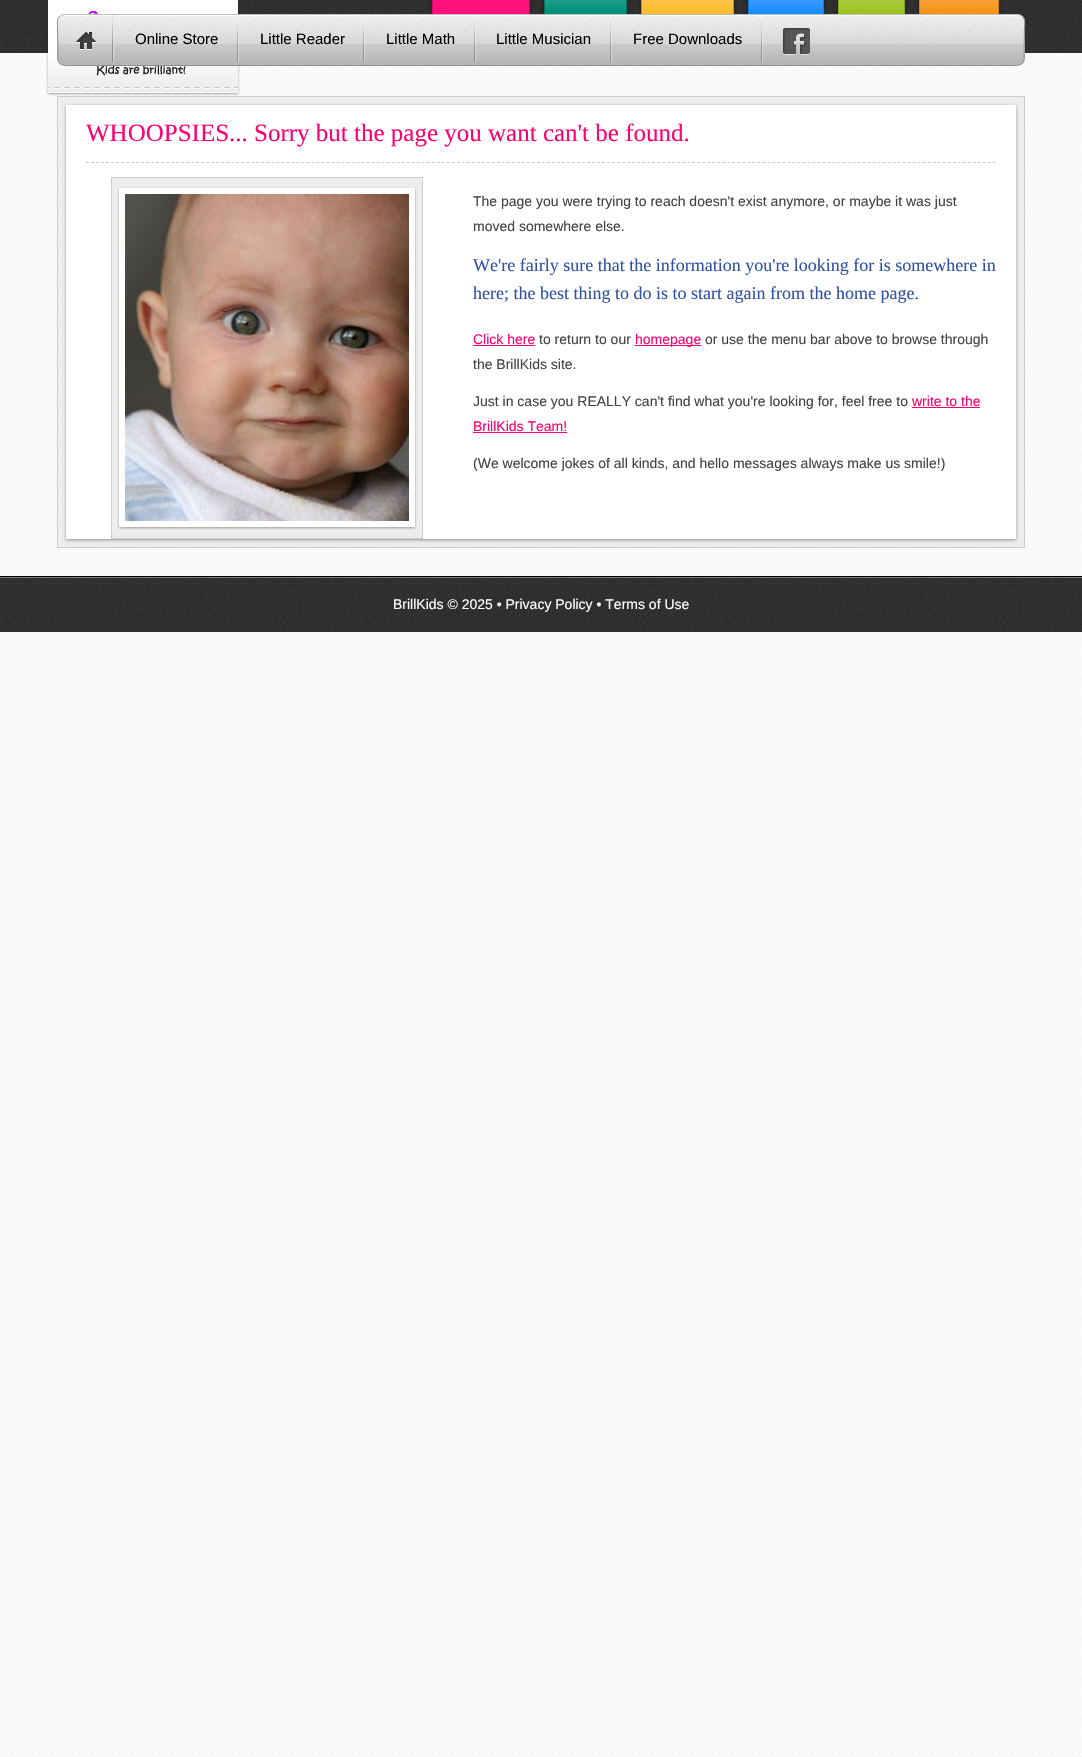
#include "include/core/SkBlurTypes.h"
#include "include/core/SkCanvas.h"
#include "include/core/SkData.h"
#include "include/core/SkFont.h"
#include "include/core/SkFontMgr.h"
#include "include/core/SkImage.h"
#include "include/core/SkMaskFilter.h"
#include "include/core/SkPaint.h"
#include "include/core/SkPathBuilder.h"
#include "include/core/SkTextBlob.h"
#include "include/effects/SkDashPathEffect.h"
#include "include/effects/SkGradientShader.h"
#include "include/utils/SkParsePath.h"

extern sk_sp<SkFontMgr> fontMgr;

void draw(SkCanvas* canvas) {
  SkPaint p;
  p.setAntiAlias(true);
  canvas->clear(SK_ColorWHITE);
  canvas->drawImageRect(SkImages::DeferredFromEncodedData(SkData::MakeFromFileName("images/1.png")), SkRect::MakeLTRB(0, 53, 1082, 1757), SkSamplingOptions());
  canvas->drawImageRect(SkImages::DeferredFromEncodedData(SkData::MakeFromFileName("images/2.png")), SkRect::MakeLTRB(0, 0, 1082, 53), SkSamplingOptions());
  p.setColor(SkColorSetARGB(128, 255, 255, 255));
  canvas->drawRect(SkRect::MakeLTRB(6, 53, 1079, 54), p);
  canvas->drawImageRect(SkImages::DeferredFromEncodedData(SkData::MakeFromFileName("images/3.png")), SkRect::MakeLTRB(46, 0, 240, 96), SkSamplingOptions());
  canvas->drawImageRect(SkImages::DeferredFromEncodedData(SkData::MakeFromFileName("images/4.png")), SkRect::MakeLTRB(88, 11, 186, 76), SkSamplingOptions());
  p.setColor(SkColorSetARGB(102, 0, 0, 0));
  p.setMaskFilter(SkMaskFilter::MakeBlur(kNormal_SkBlurStyle, 2.5f));
  canvas->drawRoundRect(SkRect::MakeLTRB(432, -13, 530, 19), 5, 5, p);
  p.setMaskFilter(nullptr);
  p.setColor(SkColorSetRGB(255, 15, 121));
  canvas->drawRect(SkRect::MakeLTRB(433, 0, 529, 14), p);
  p.setColor(SkColorSetRGB(219, 5, 100));
  canvas->drawPath(SkPathBuilder(SkPathFillType::kEvenOdd).moveTo(437, -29).lineTo(525, -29).cubicTo(528, -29, 530, -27, 530, -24).lineTo(530, 14).lineTo(432, 14).lineTo(432, -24).cubicTo(432, -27, 434, -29, 437, -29).close().moveTo(437, -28).lineTo(525, -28).cubicTo(527, -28, 529, -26, 529, -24).lineTo(529, 14).lineTo(433, 14).lineTo(433, -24).cubicTo(433, -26, 435, -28, 437, -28).close().detach(), p);
  p.setColor(SkColorSetARGB(102, 0, 0, 0));
  p.setMaskFilter(SkMaskFilter::MakeBlur(kNormal_SkBlurStyle, 2.5f));
  canvas->drawRoundRect(SkRect::MakeLTRB(544, -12, 627, 19), 5, 5, p);
  p.setMaskFilter(nullptr);
  p.setColor(SkColorSetRGB(0, 144, 122));
  canvas->drawRect(SkRect::MakeLTRB(545, 0, 626, 14), p);
  canvas->drawImageRect(SkImages::DeferredFromEncodedData(SkData::MakeFromFileName("images/5.png")), SkRect::MakeLTRB(545, 0, 626, 10), SkSamplingOptions());
  p.setColor(SkColorSetRGB(0, 112, 95));
  canvas->drawPath(SkPathBuilder(SkPathFillType::kEvenOdd).moveTo(549, -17).lineTo(622, -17).cubicTo(625, -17, 627, -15, 627, -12).lineTo(627, 14).lineTo(544, 14).lineTo(544, -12).cubicTo(544, -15, 546, -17, 549, -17).close().moveTo(549, -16).lineTo(622, -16).cubicTo(624, -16, 626, -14, 626, -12).lineTo(626, 14).lineTo(545, 14).lineTo(545, -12).cubicTo(545, -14, 547, -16, 549, -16).close().detach(), p);
  p.setColor(SkColorSetARGB(102, 0, 0, 0));
  p.setMaskFilter(SkMaskFilter::MakeBlur(kNormal_SkBlurStyle, 2.5f));
  canvas->drawRoundRect(SkRect::MakeLTRB(641, -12, 734, 19), 5, 5, p);
  p.setMaskFilter(nullptr);
  p.setColor(SkColorSetRGB(255, 189, 47));
  canvas->drawRect(SkRect::MakeLTRB(642, 0, 733, 14), p);
  canvas->drawImageRect(SkImages::DeferredFromEncodedData(SkData::MakeFromFileName("images/6.png")), SkRect::MakeLTRB(642, 0, 733, 10), SkSamplingOptions());
  p.setColor(SkColorSetRGB(206, 144, 10));
  canvas->drawPath(SkPathBuilder(SkPathFillType::kEvenOdd).moveTo(646, -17).lineTo(729, -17).cubicTo(732, -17, 734, -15, 734, -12).lineTo(734, 14).lineTo(641, 14).lineTo(641, -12).cubicTo(641, -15, 643, -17, 646, -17).close().moveTo(646, -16).lineTo(729, -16).cubicTo(731, -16, 733, -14, 733, -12).lineTo(733, 14).lineTo(642, 14).lineTo(642, -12).cubicTo(642, -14, 644, -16, 646, -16).close().detach(), p);
  p.setColor(SkColorSetARGB(102, 0, 0, 0));
  p.setMaskFilter(SkMaskFilter::MakeBlur(kNormal_SkBlurStyle, 2.5f));
  canvas->drawRoundRect(SkRect::MakeLTRB(748, -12, 824, 19), 5, 5, p);
  p.setMaskFilter(nullptr);
  p.setColor(SkColorSetRGB(29, 142, 255));
  canvas->drawRect(SkRect::MakeLTRB(749, 0, 823, 14), p);
  canvas->drawImageRect(SkImages::DeferredFromEncodedData(SkData::MakeFromFileName("images/7.png")), SkRect::MakeLTRB(749, 0, 823, 10), SkSamplingOptions());
  p.setColor(SkColorSetRGB(14, 122, 229));
  canvas->drawPath(SkPathBuilder(SkPathFillType::kEvenOdd).moveTo(753, -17).lineTo(819, -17).cubicTo(822, -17, 824, -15, 824, -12).lineTo(824, 14).lineTo(748, 14).lineTo(748, -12).cubicTo(748, -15, 750, -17, 753, -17).close().moveTo(753, -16).lineTo(819, -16).cubicTo(821, -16, 823, -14, 823, -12).lineTo(823, 14).lineTo(749, 14).lineTo(749, -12).cubicTo(749, -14, 751, -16, 753, -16).close().detach(), p);
  p.setColor(SkColorSetARGB(102, 0, 0, 0));
  p.setMaskFilter(SkMaskFilter::MakeBlur(kNormal_SkBlurStyle, 2.5f));
  canvas->drawRoundRect(SkRect::MakeLTRB(838, -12, 905, 19), 5, 5, p);
  p.setMaskFilter(nullptr);
  p.setColor(SkColorSetRGB(156, 196, 35));
  canvas->drawRect(SkRect::MakeLTRB(839, 0, 904, 14), p);
  canvas->drawImageRect(SkImages::DeferredFromEncodedData(SkData::MakeFromFileName("images/8.png")), SkRect::MakeLTRB(839, 0, 904, 10), SkSamplingOptions());
  p.setColor(SkColorSetRGB(130, 167, 19));
  canvas->drawPath(SkPathBuilder(SkPathFillType::kEvenOdd).moveTo(843, -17).lineTo(900, -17).cubicTo(903, -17, 905, -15, 905, -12).lineTo(905, 14).lineTo(838, 14).lineTo(838, -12).cubicTo(838, -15, 840, -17, 843, -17).close().moveTo(843, -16).lineTo(900, -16).cubicTo(902, -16, 904, -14, 904, -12).lineTo(904, 14).lineTo(839, 14).lineTo(839, -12).cubicTo(839, -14, 841, -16, 843, -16).close().detach(), p);
  p.setColor(SkColorSetARGB(102, 0, 0, 0));
  p.setMaskFilter(SkMaskFilter::MakeBlur(kNormal_SkBlurStyle, 2.5f));
  canvas->drawRoundRect(SkRect::MakeLTRB(919, -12, 999, 19), 5, 5, p);
  p.setMaskFilter(nullptr);
  p.setColor(SkColorSetRGB(247, 148, 29));
  canvas->drawRect(SkRect::MakeLTRB(920, 0, 998, 14), p);
  canvas->drawImageRect(SkImages::DeferredFromEncodedData(SkData::MakeFromFileName("images/9.png")), SkRect::MakeLTRB(920, 0, 998, 10), SkSamplingOptions());
  p.setColor(SkColorSetRGB(220, 125, 10));
  canvas->drawPath(SkPathBuilder(SkPathFillType::kEvenOdd).moveTo(924, -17).lineTo(994, -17).cubicTo(997, -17, 999, -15, 999, -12).lineTo(999, 14).lineTo(919, 14).lineTo(919, -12).cubicTo(919, -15, 921, -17, 924, -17).close().moveTo(924, -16).lineTo(994, -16).cubicTo(996, -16, 998, -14, 998, -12).lineTo(998, 14).lineTo(920, 14).lineTo(920, -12).cubicTo(920, -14, 922, -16, 924, -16).close().detach(), p);
  canvas->drawImageRect(SkImages::DeferredFromEncodedData(SkData::MakeFromFileName("images/10.png")), SkRect::MakeLTRB(57, 14, 1025, 66), SkSamplingOptions());
  p.setStyle(SkPaint::kStroke_Style);
  p.setStrokeWidth(1);
  p.setColor(SkColorSetRGB(190, 190, 190));
  canvas->drawPath(SkPathBuilder().moveTo(59.5f, 16.5f).cubicTo(61, 15.5f, 63, 14.5f, 65, 14.5f).lineTo(1017, 14.5f).cubicTo(1019, 14.5f, 1021, 15.5f, 1022.5f, 16.5f).detach(), p);
  p.setColor(SkColorSetRGB(142, 142, 142));
  canvas->drawPath(SkPathBuilder().moveTo(1022.5f, 16.5f).cubicTo(1025.5f, 19.5f, 1024.5f, 24, 1024.5f, 28).lineTo(1024, 60).cubicTo(1023.5f, 63, 1020.5f, 65, 1017.5f, 65.5f).lineTo(64.5f, 65.5f).cubicTo(61.5f, 65, 58.5f, 63, 58, 60).lineTo(57.5f, 28).cubicTo(57.5f, 24, 56.5f, 19.5f, 59.5f, 16.5f).detach(), p);
  canvas->drawImageRect(SkImages::DeferredFromEncodedData(SkData::MakeFromFileName("images/11.png")), SkRect::MakeLTRB(112, 15, 114, 62), SkSamplingOptions());
  canvas->drawImageRect(SkImages::DeferredFromEncodedData(SkData::MakeFromFileName("images/12.png")), SkRect::MakeLTRB(75, 31, 97, 50), SkSamplingOptions());
  canvas->drawImageRect(SkImages::DeferredFromEncodedData(SkData::MakeFromFileName("images/13.png")), SkRect::MakeLTRB(237, 16, 239, 62), SkSamplingOptions());
  canvas->drawImageRect(SkImages::DeferredFromEncodedData(SkData::MakeFromFileName("images/13.png")), SkRect::MakeLTRB(363, 16, 365, 62), SkSamplingOptions());
  canvas->drawImageRect(SkImages::DeferredFromEncodedData(SkData::MakeFromFileName("images/13.png")), SkRect::MakeLTRB(474, 16, 476, 62), SkSamplingOptions());
  canvas->drawImageRect(SkImages::DeferredFromEncodedData(SkData::MakeFromFileName("images/13.png")), SkRect::MakeLTRB(610, 16, 612, 62), SkSamplingOptions());
  canvas->drawImageRect(SkImages::DeferredFromEncodedData(SkData::MakeFromFileName("images/13.png")), SkRect::MakeLTRB(761, 16, 763, 62), SkSamplingOptions());
  canvas->drawImageRect(SkImages::DeferredFromEncodedData(SkData::MakeFromFileName("images/14.png")), SkRect::MakeLTRB(783, 28, 810, 55), SkSamplingOptions());
  canvas->drawImageRect(SkImages::DeferredFromEncodedData(SkData::MakeFromFileName("images/15.png")), SkRect::MakeLTRB(0, 96, 1082, 576), SkSamplingOptions());
  p.setStyle(SkPaint::kFill_Style);
  p.setColor(SkColorSetRGB(237, 237, 237));
  canvas->drawRect(SkRect::MakeLTRB(57.5f, 96.5f, 1024.5f, 547.5f), p);
  p.setStyle(SkPaint::kStroke_Style);
  p.setColor(SkColorSetRGB(204, 204, 204));
  canvas->drawRect(SkRect::MakeLTRB(57.5f, 96.5f, 1024.5f, 547.5f), p);
  p.setStyle(SkPaint::kFill_Style);
  p.setColor(SkColorSetARGB(102, 0, 0, 0));
  p.setMaskFilter(SkMaskFilter::MakeBlur(kNormal_SkBlurStyle, 1.5f));
  canvas->drawRect(SkRect::MakeLTRB(66, 106, 1016, 540), p);
  p.setMaskFilter(nullptr);
  p.setColor(SK_ColorWHITE);
  canvas->drawRect(SkRect::MakeLTRB(66, 105, 1016, 539), p);
  p.setStyle(SkPaint::kStroke_Style);
  p.setColor(SkColorSetRGB(204, 204, 204));
  p.setPathEffect(SkDashPathEffect::Make({{3, 2.01f}}, 0));
  canvas->drawPath(SkPathBuilder().moveTo(86, 162.5f).lineTo(996, 162.5f).detach(), p);
  p.setPathEffect(nullptr);
  p.setStyle(SkPaint::kFill_Style);
  p.setColor(SkColorSetRGB(237, 237, 237));
  canvas->drawRect(SkRect::MakeLTRB(111.5f, 177.5f, 422.5f, 538.5f), p);
  p.setStyle(SkPaint::kStroke_Style);
  p.setColor(SkColorSetRGB(204, 204, 204));
  canvas->drawRect(SkRect::MakeLTRB(111.5f, 177.5f, 422.5f, 538.5f), p);
  canvas->drawImageRect(SkImages::DeferredFromEncodedData(SkData::MakeFromFileName("images/16.png")), SkRect::MakeLTRB(117, 183, 417, 533), SkSamplingOptions());
  p.setStyle(SkPaint::kFill_Style);
  p.setColor(SkColorSetRGB(255, 0, 113));
  canvas->drawRect(SkRect::MakeLTRB(473, 345, 535, 346), p);
  canvas->drawRect(SkRect::MakeLTRB(635, 345, 701, 346), p);
  canvas->drawRect(SkRect::MakeLTRB(912, 407, 980, 408), p);
  canvas->drawRect(SkRect::MakeLTRB(473, 432, 567, 433), p);
  canvas->drawImageRect(SkImages::DeferredFromEncodedData(SkData::MakeFromFileName("images/17.png")), SkRect::MakeLTRB(0, 578, 1082, 632), SkSamplingOptions());
  p.setColor(SK_ColorBLACK);
  canvas->drawRect(SkRect::MakeLTRB(0, 576, 1082, 577), p);
  p.setColor(SkColorSetRGB(122, 122, 122));
  canvas->drawRect(SkRect::MakeLTRB(0, 577, 1082, 578), p);
  SkFont font1(fontMgr->matchFamilyStyle("Liberation Sans", SkFontStyle::Normal()), 15);
  font1.setSubpixel(true);
  p.setColor(SK_ColorBLACK);
  canvas->drawString("Online Store", 135, 44, font1, p);
  canvas->drawString("Little Reader", 260, 44, font1, p);
  canvas->drawString("Little Math", 386, 44, font1, p);
  canvas->drawString("Little Musician", 496, 44, font1, p);
  canvas->drawString("Free Downloads", 633, 44, font1, p);
  SkFont font2(fontMgr->matchFamilyStyle("Liberation Serif", SkFontStyle::Normal()), 25);
  font2.setSubpixel(true);
  p.setColor(SkColorSetRGB(255, 0, 113));
  canvas->drawString("WHOOPSIES... Sorry but the page you want can't be found.", 86, 141, font2, p);
  SkFont font3(fontMgr->matchFamilyStyle("Liberation Sans", SkFontStyle::Normal()), 14);
  font3.setSubpixel(true);
  p.setColor(SkColorSetRGB(65, 65, 65));
  canvas->drawString("The page you were trying to reach doesn't exist anymore, or maybe it was just", 473, 206, font3, p);
  canvas->drawString("moved somewhere else.", 473, 231, font3, p);
  SkFont font4(fontMgr->matchFamilyStyle("Liberation Serif", SkFontStyle::Normal()), 18);
  font4.setSubpixel(true);
  p.setColor(SkColorSetRGB(47, 80, 163));
  canvas->drawString("We're fairly sure that the information you're looking for is somewhere in", 473, 271, font4, p);
  canvas->drawString("here; the best thing to do is to start again from the home page.", 473, 299, font4, p);
  p.setColor(SkColorSetRGB(255, 0, 113));
  canvas->drawString("Click here", 473, 344, font3, p);
  p.setColor(SkColorSetRGB(65, 65, 65));
  canvas->drawString("to return to our", 539, 344, font3, p);
  p.setColor(SkColorSetRGB(255, 0, 113));
  canvas->drawString("homepage", 635, 344, font3, p);
  p.setColor(SkColorSetRGB(65, 65, 65));
  canvas->drawString("or use the menu bar above to browse through", 705, 344, font3, p);
  canvas->drawString("the BrillKids site.", 473, 369, font3, p);
  canvas->drawString("Just in case you REALLY can't find what you're looking for, feel free to", 473, 406, font3, p);
  p.setColor(SkColorSetRGB(255, 0, 113));
  canvas->drawString("write to the", 912, 406, font3, p);
  canvas->drawString("BrillKids Team!", 473, 431, font3, p);
  p.setColor(SkColorSetRGB(65, 65, 65));
  canvas->drawString("(We welcome jokes of all kinds, and hello messages always make us smile!)", 473, 468, font3, p);
  p.setColor(SK_ColorWHITE);
  canvas->drawString("BrillKids © 2025 • Privacy Policy • Terms of Use", 393, 609, font3, p);
}
